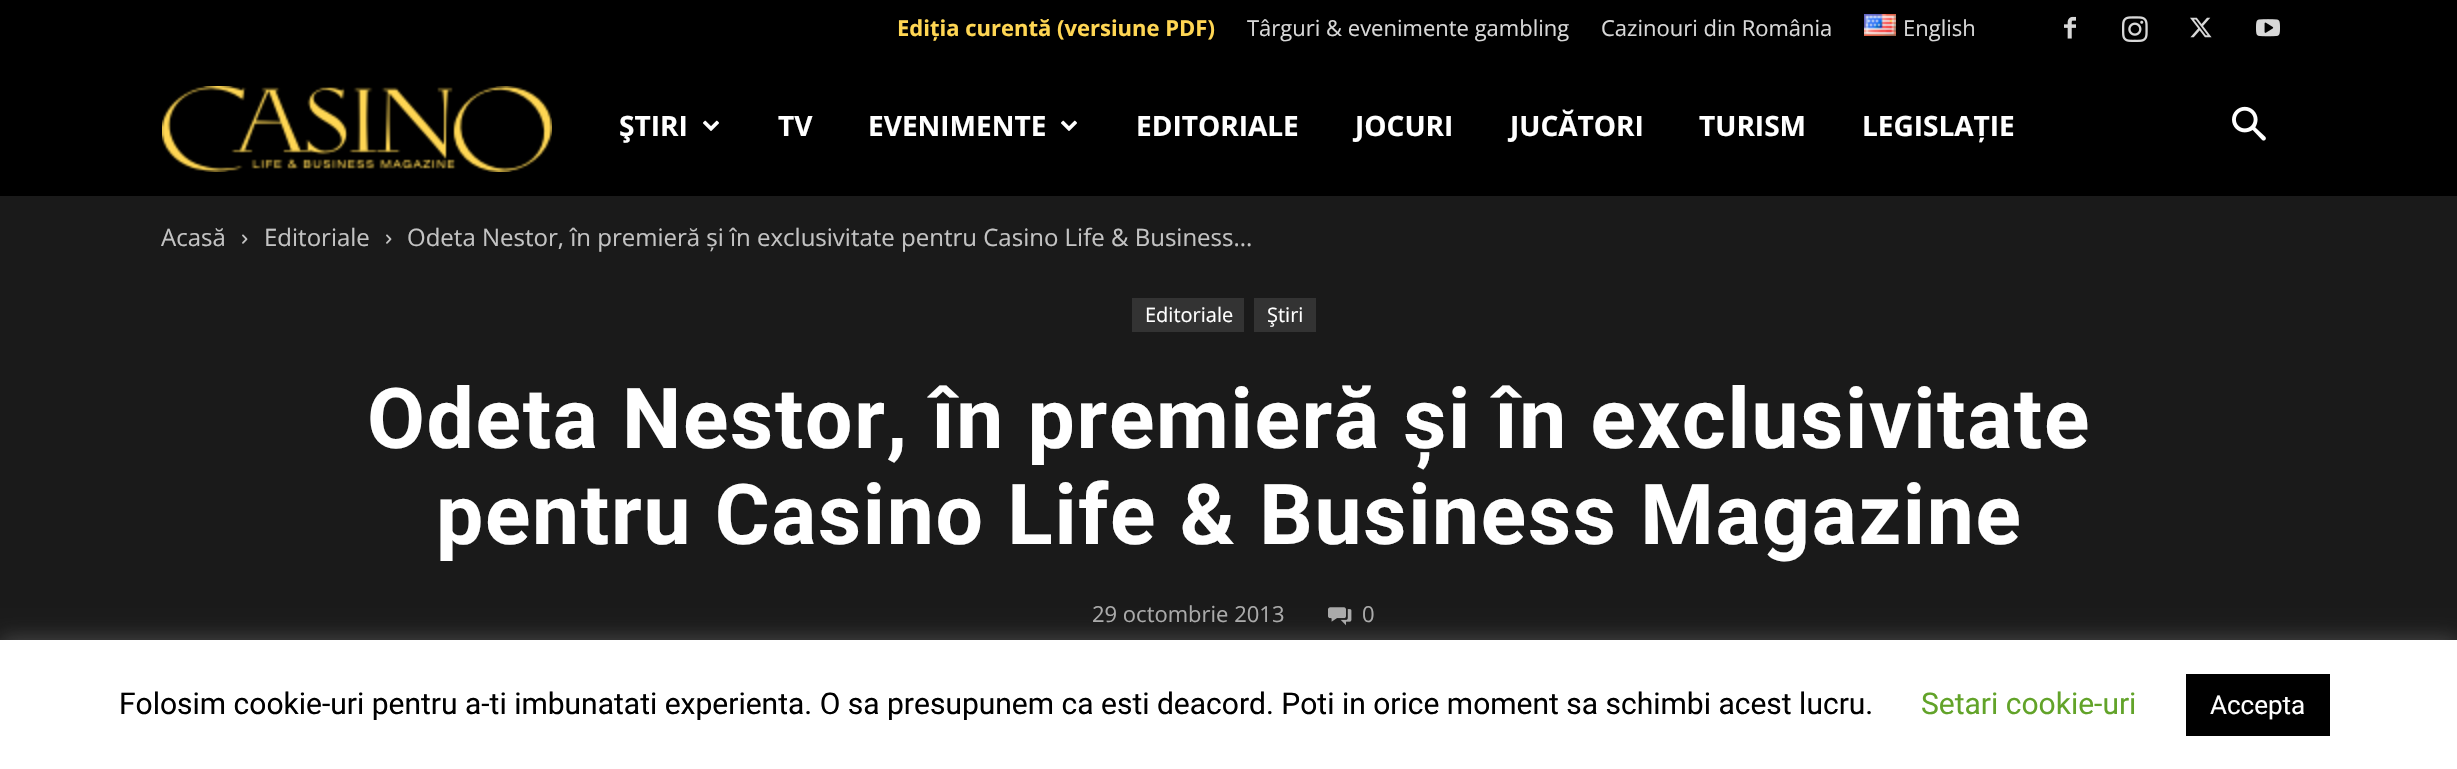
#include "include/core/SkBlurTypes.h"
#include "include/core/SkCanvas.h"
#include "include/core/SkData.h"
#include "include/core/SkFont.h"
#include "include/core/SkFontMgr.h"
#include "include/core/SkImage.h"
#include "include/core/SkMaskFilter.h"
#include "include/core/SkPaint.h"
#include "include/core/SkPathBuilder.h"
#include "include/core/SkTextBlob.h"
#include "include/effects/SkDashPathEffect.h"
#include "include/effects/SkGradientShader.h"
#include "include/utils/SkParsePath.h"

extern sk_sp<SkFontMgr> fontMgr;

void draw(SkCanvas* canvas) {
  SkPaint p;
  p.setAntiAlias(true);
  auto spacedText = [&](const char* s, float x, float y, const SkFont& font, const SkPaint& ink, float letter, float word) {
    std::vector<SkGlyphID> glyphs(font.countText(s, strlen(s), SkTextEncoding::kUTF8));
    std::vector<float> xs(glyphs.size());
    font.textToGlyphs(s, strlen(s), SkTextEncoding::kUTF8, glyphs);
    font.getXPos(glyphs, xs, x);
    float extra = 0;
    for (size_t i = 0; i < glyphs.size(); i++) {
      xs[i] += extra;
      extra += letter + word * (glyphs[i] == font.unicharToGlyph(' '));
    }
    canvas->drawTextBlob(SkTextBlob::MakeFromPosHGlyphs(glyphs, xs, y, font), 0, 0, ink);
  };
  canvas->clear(SkColorSetRGB(26, 26, 26));
  p.setColor(SK_ColorBLACK);
  canvas->drawRect(SkRect::MakeLTRB(0, 0, 2457, 196), p);
  canvas->drawImageRect(SkImages::DeferredFromEncodedData(SkData::MakeFromFileName("images/1.png")), SkRect::MakeLTRB(1864, 14, 1896, 36), SkSamplingOptions());
  canvas->drawImageRect(SkImages::DeferredFromEncodedData(SkData::MakeFromFileName("images/2.png")), SkRect::MakeLTRB(2064, 16, 2076, 39), SkSamplingOptions());
  canvas->drawImageRect(SkImages::DeferredFromEncodedData(SkData::MakeFromFileName("images/3.png")), SkRect::MakeLTRB(2122, 16, 2148, 42), SkSamplingOptions());
  canvas->drawImageRect(SkImages::DeferredFromEncodedData(SkData::MakeFromFileName("images/4.png")), SkRect::MakeLTRB(2190, 17, 2212, 38), SkSamplingOptions());
  canvas->drawImageRect(SkImages::DeferredFromEncodedData(SkData::MakeFromFileName("images/5.png")), SkRect::MakeLTRB(2256, 19, 2280, 37), SkSamplingOptions());
  canvas->drawImageRect(SkImages::DeferredFromEncodedData(SkData::MakeFromFileName("images/6.png")), SkRect::MakeLTRB(162, 86, 552, 172), SkSamplingOptions());
  canvas->drawImageRect(SkImages::DeferredFromEncodedData(SkData::MakeFromFileName("images/7.png")), SkRect::MakeLTRB(703, 120, 719, 131), SkSamplingOptions());
  canvas->drawImageRect(SkImages::DeferredFromEncodedData(SkData::MakeFromFileName("images/7.png")), SkRect::MakeLTRB(1061, 120, 1077, 131), SkSamplingOptions());
  canvas->drawImageRect(SkImages::DeferredFromEncodedData(SkData::MakeFromFileName("images/8.png")), SkRect::MakeLTRB(2232, 106, 2266, 141), SkSamplingOptions());
  canvas->drawImageRect(SkImages::DeferredFromEncodedData(SkData::MakeFromFileName("images/9.png")), SkRect::MakeLTRB(242, 234, 248, 244), SkSamplingOptions());
  canvas->drawImageRect(SkImages::DeferredFromEncodedData(SkData::MakeFromFileName("images/9.png")), SkRect::MakeLTRB(386, 234, 392, 244), SkSamplingOptions());
  p.setColor(SkColorSetRGB(51, 51, 51));
  canvas->drawRect(SkRect::MakeLTRB(1132, 298, 1244, 332), p);
  canvas->drawRect(SkRect::MakeLTRB(1254, 298, 1316, 332), p);
  canvas->drawImageRect(SkImages::DeferredFromEncodedData(SkData::MakeFromFileName("images/10.png")), SkRect::MakeLTRB(1328, 607, 1352, 626), SkSamplingOptions());
  p.setColor(SkColorSetARGB(77, 172, 171, 171));
  p.setMaskFilter(SkMaskFilter::MakeBlur(kNormal_SkBlurStyle, 10));
  canvas->drawRect(SkRect::MakeLTRB(0, 638, 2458, 768), p);
  p.setMaskFilter(nullptr);
  p.setColor(SK_ColorWHITE);
  canvas->drawRect(SkRect::MakeLTRB(0, 640, 2457, 769), p);
  p.setColor(SK_ColorBLACK);
  canvas->drawRect(SkRect::MakeLTRB(2186, 674, 2330, 736), p);
  SkFont font1(fontMgr->matchFamilyStyle("Open Sans", SkFontStyle::Bold()), 22);
  font1.setSubpixel(true);
  p.setColor(SkColorSetRGB(255, 214, 83));
  canvas->drawString("Ediția curentă (versiune PDF)", 897, 36, font1, p);
  SkFont font2(fontMgr->matchFamilyStyle("Open Sans", SkFontStyle::Normal()), 22);
  font2.setSubpixel(true);
  p.setColor(SkColorSetRGB(216, 216, 216));
  canvas->drawString("Târguri & evenimente gambling", 1247, 36, font2, p);
  canvas->drawString("Cazinouri din România", 1601, 36, font2, p);
  canvas->drawString("English", 1903, 36, font2, p);
  SkFont font3(fontMgr->matchFamilyStyle("Open Sans", SkFontStyle::Bold()), 28);
  font3.setSubpixel(true);
  p.setColor(SK_ColorWHITE);
  canvas->drawString("ŞTIRI", 619, 136, font3, p);
  canvas->drawString("TV", 778, 136, font3, p);
  canvas->drawString("EVENIMENTE", 868, 136, font3, p);
  canvas->drawString("EDITORIALE", 1136, 136, font3, p);
  canvas->drawString("JOCURI", 1355, 136, font3, p);
  canvas->drawString("JUCĂTORI", 1510, 136, font3, p);
  canvas->drawString("TURISM", 1699, 136, font3, p);
  canvas->drawString("LEGISLAȚIE", 1862, 136, font3, p);
  SkFont font4(fontMgr->matchFamilyStyle("Open Sans", SkFontStyle::Normal()), 24);
  font4.setSubpixel(true);
  p.setColor(SkColorSetRGB(195, 195, 195));
  canvas->drawString("Acasă", 161, 246, font4, p);
  canvas->drawString("Editoriale", 264, 246, font4, p);
  canvas->drawString("Odeta Nestor, în premieră și în exclusivitate pentru Casino Life & Business...", 407, 246, font4, p);
  SkFont font5(fontMgr->matchFamilyStyle("Open Sans", SkFontStyle::Normal()), 20);
  font5.setSubpixel(true);
  p.setColor(SK_ColorWHITE);
  canvas->drawString("Editoriale", 1145, 322, font5, p);
  canvas->drawString("Ştiri", 1267, 322, font5, p);
  SkFont font6(fontMgr->matchFamilyStyle("Roboto", SkFontStyle::Bold()), 84);
  font6.setSubpixel(true);
  spacedText("Odeta Nestor, în premieră și în exclusivitate", 367, 448, font6, p, 1.7f, 0);
  spacedText("pentru Casino Life & Business Magazine", 436, 544, font6, p, 1.7f, 0);
  p.setColor(SkColorSetRGB(170, 170, 170));
  canvas->drawString("29 octombrie 2013", 1092, 622, font2, p);
  canvas->drawString("0", 1362, 622, font2, p);
  SkFont font7(fontMgr->matchFamilyStyle("Roboto", SkFontStyle::Normal()), 30);
  font7.setSubpixel(true);
  p.setColor(SK_ColorBLACK);
  canvas->drawString("Folosim cookie-uri pentru a-ti imbunatati experienta. O sa presupunem ca esti deacord. Poti in orice moment sa schimbi acest lucru.", 119, 714, font7, p);
  p.setColor(SkColorSetRGB(98, 163, 41));
  canvas->drawString("Setari cookie-uri", 1921, 714, font7, p);
  SkFont font8(fontMgr->matchFamilyStyle("Roboto", SkFontStyle::Normal()), 26);
  font8.setSubpixel(true);
  p.setColor(SK_ColorWHITE);
  canvas->drawString("Accepta", 2210, 714, font8, p);
}
